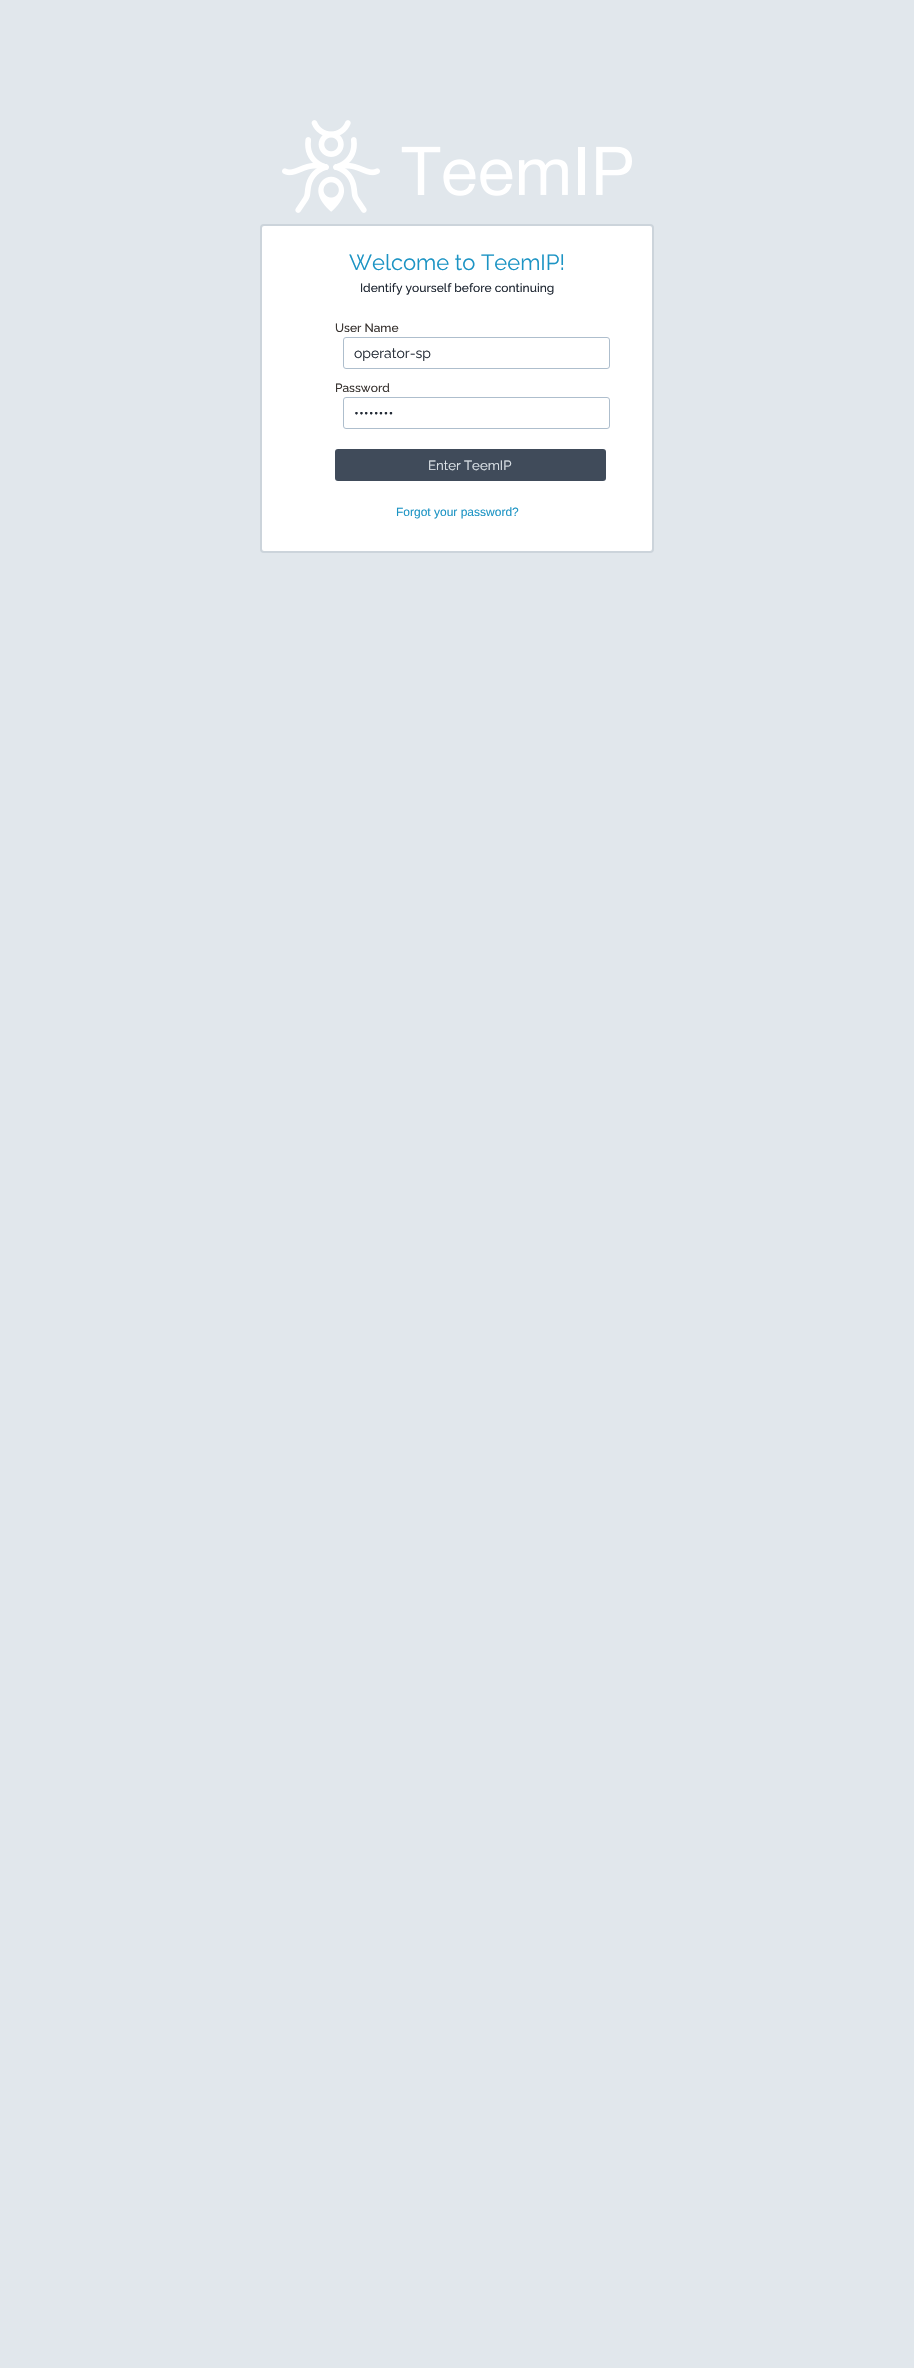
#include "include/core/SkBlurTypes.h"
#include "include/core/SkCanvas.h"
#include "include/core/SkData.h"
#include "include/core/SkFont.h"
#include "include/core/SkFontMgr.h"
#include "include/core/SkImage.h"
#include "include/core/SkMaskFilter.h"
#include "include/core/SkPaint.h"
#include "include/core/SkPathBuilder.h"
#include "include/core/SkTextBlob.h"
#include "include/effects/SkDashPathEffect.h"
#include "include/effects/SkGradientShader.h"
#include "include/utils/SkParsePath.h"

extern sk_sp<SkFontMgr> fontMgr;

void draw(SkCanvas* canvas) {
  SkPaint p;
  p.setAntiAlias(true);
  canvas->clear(SkColorSetRGB(225, 231, 236));
  canvas->drawImageRect(SkImages::DeferredFromEncodedData(SkData::MakeFromFileName("images/1.png")), SkRect::MakeLTRB(282, 120, 632, 213), SkSamplingOptions());
  p.setColor(SK_ColorWHITE);
  canvas->drawRoundRect(SkRect::MakeLTRB(261, 225, 653, 552), 3, 3, p);
  p.setStyle(SkPaint::kStroke_Style);
  p.setStrokeWidth(2);
  p.setColor(SkColorSetRGB(204, 212, 219));
  canvas->drawRoundRect(SkRect::MakeLTRB(261, 225, 653, 552), 3, 3, p);
  p.setStrokeWidth(1);
  p.setColor(SkColorSetRGB(174, 190, 205));
  canvas->drawRoundRect(SkRect::MakeLTRB(343.5f, 337.5f, 609.5f, 368.5f), 2.5f, 2.5f, p);
  canvas->drawRoundRect(SkRect::MakeLTRB(343.5f, 397.5f, 609.5f, 428.5f), 2.5f, 2.5f, p);
  p.setStyle(SkPaint::kFill_Style);
  p.setColor(SkColorSetRGB(64, 75, 90));
  canvas->drawRoundRect(SkRect::MakeLTRB(335, 449, 606, 481), 3, 3, p);
  SkFont font1(fontMgr->matchFamilyStyle("Raleway", SkFontStyle::Normal()), 22);
  font1.setSubpixel(true);
  p.setColor(SkColorSetRGB(28, 148, 196));
  canvas->drawString("Welcome to TeemIP!", 349, 270, font1, p);
  SkFont font2(fontMgr->matchFamilyStyle("Raleway", SkFontStyle(500, SkFontStyle::kNormal_Width, SkFontStyle::kUpright_Slant)), 12);
  font2.setSubpixel(true);
  p.setColor(SkColorSetRGB(33, 41, 52));
  canvas->drawString("Identify yourself before continuing", 360, 292, font2, p);
  p.setColor(SkColorSetRGB(55, 50, 47));
  canvas->drawString("User Name", 335, 332, font2, p);
  SkFont font3(fontMgr->matchFamilyStyle("Raleway", SkFontStyle::Normal()), 14);
  font3.setSubpixel(true);
  p.setColor(SkColorSetRGB(33, 41, 52));
  canvas->drawString("operator-sp", 354, 358, font3, p);
  p.setColor(SkColorSetRGB(55, 50, 47));
  canvas->drawString("Password", 335, 392, font2, p);
  p.setColor(SkColorSetRGB(33, 41, 52));
  canvas->drawString("••••••••", 354, 418, font3, p);
  SkFont font4(fontMgr->matchFamilyStyle("Raleway", SkFontStyle::Normal()), 13.25f);
  font4.setSubpixel(true);
  p.setColor(SkColorSetRGB(225, 231, 236));
  canvas->drawString("Enter TeemIP", 428, 470, font4, p);
  SkFont font5(fontMgr->matchFamilyStyle("Liberation Sans", SkFontStyle::Normal()), 12);
  font5.setSubpixel(true);
  p.setColor(SkColorSetRGB(28, 148, 196));
  canvas->drawString("Forgot your password?", 396, 516, font5, p);
}
